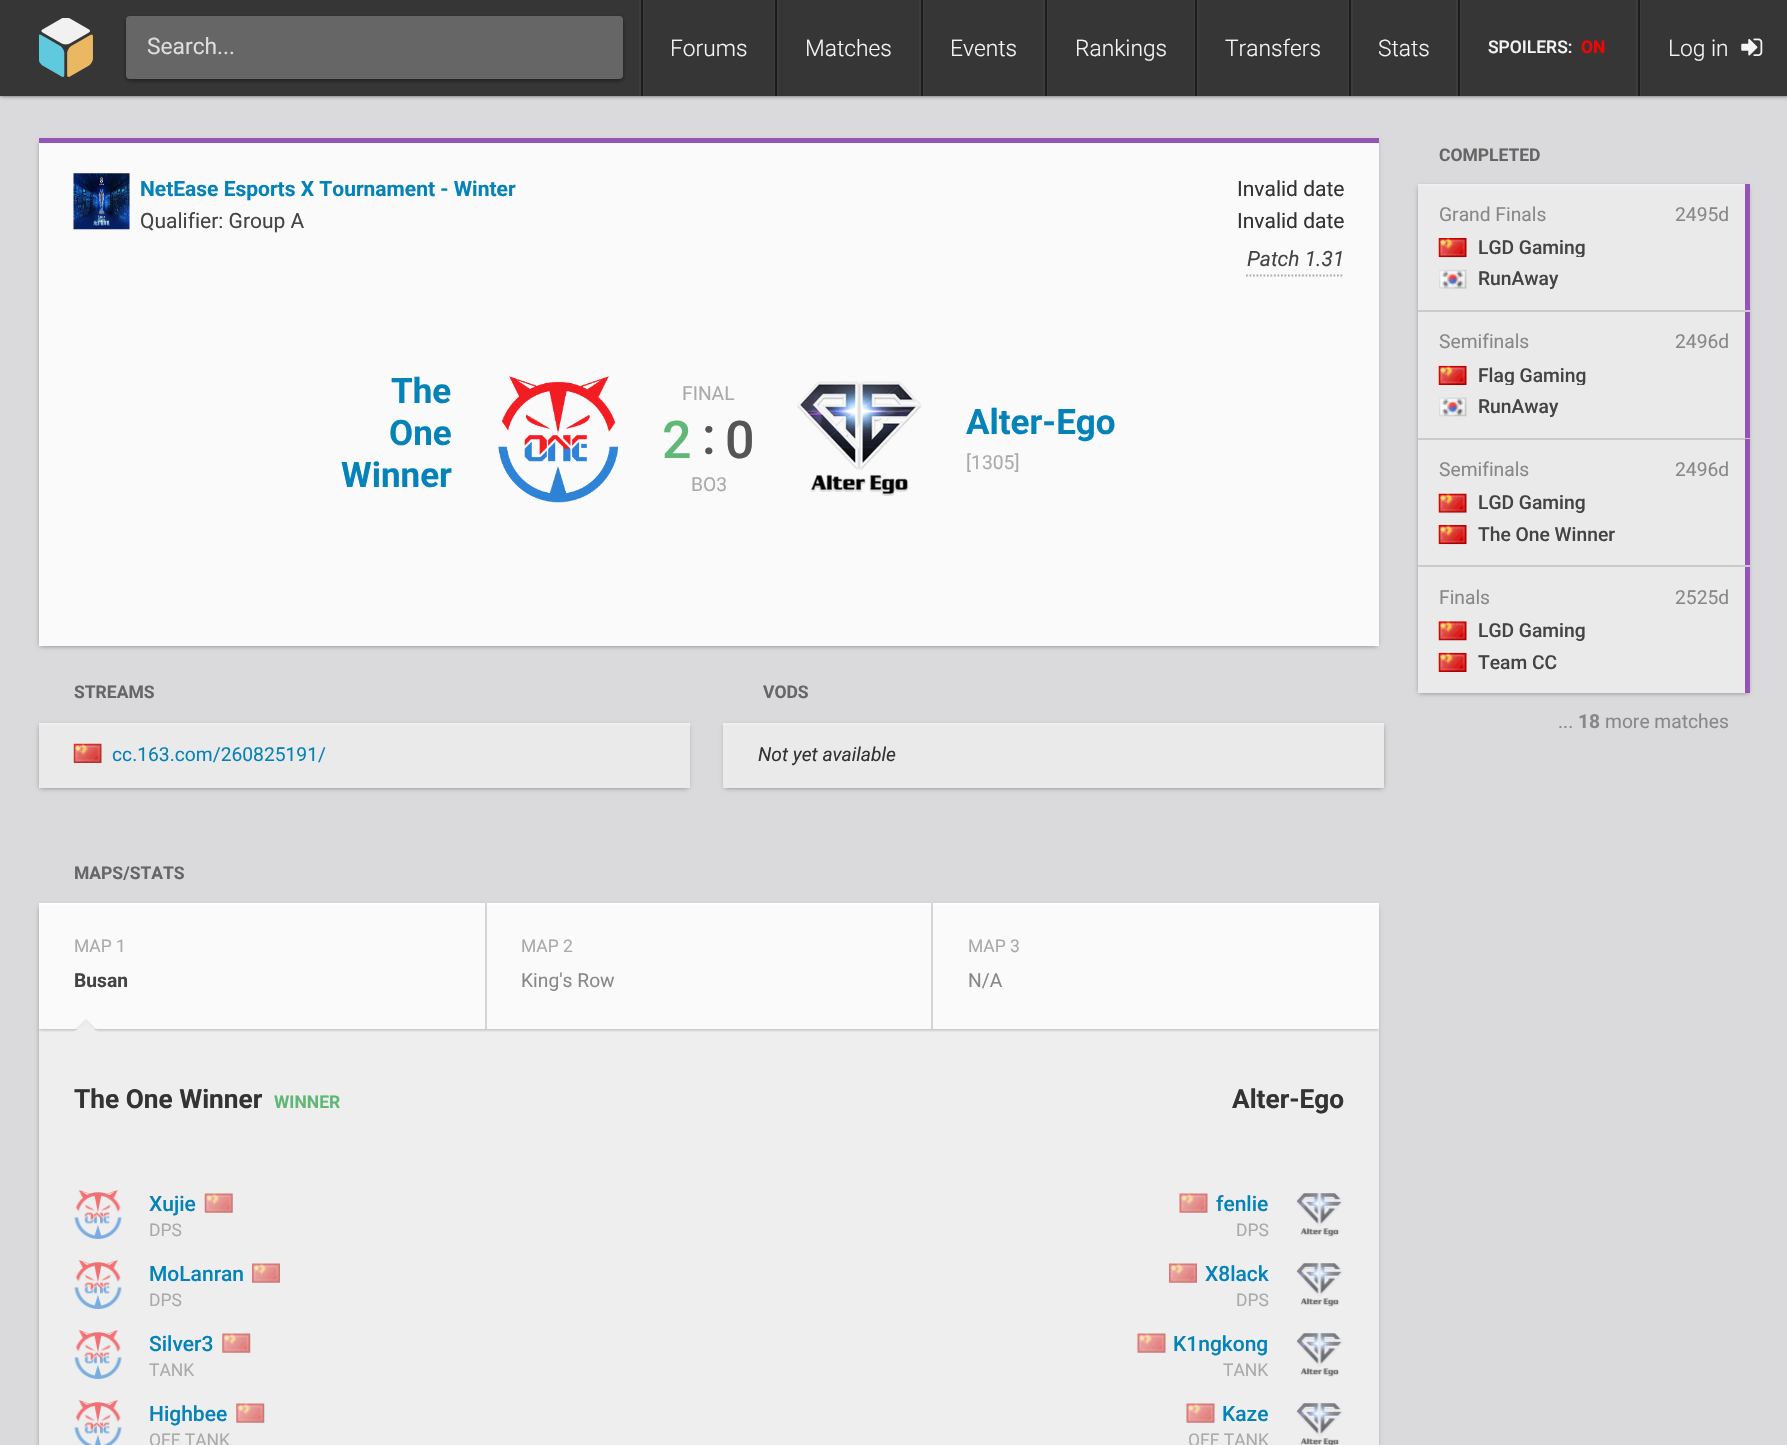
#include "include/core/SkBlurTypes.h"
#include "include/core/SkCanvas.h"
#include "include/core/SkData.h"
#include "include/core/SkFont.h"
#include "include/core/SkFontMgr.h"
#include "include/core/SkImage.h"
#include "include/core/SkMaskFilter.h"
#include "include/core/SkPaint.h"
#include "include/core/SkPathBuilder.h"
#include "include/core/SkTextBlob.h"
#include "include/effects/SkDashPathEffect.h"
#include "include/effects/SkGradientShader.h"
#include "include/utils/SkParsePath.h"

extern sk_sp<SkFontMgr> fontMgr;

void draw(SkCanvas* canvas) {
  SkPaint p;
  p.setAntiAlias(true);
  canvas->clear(SkColorSetRGB(218, 218, 220));
  p.setColor(SkColorSetARGB(153, 0, 0, 0));
  p.setMaskFilter(SkMaskFilter::MakeBlur(kNormal_SkBlurStyle, 2));
  canvas->drawRect(SkRect::MakeLTRB(0, 0, 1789, 96), p);
  p.setMaskFilter(nullptr);
  p.setColor(SkColorSetRGB(54, 54, 54));
  canvas->drawRect(SkRect::MakeLTRB(0, 0, 1787, 96), p);
  canvas->drawImageRect(SkImages::DeferredFromEncodedData(SkData::MakeFromFileName("images/1.png")), SkRect::MakeLTRB(39, 18, 93, 77), SkSamplingOptions());
  p.setColor(SkColorSetARGB(102, 0, 0, 0));
  p.setMaskFilter(SkMaskFilter::MakeBlur(kNormal_SkBlurStyle, 2));
  canvas->drawRoundRect(SkRect::MakeLTRB(126, 18, 623, 81), 4, 4, p);
  p.setMaskFilter(nullptr);
  p.setColor(SkColorSetRGB(102, 102, 102));
  canvas->drawRoundRect(SkRect::MakeLTRB(126, 16, 623, 79), 4, 4, p);
  p.setColor(SkColorSetRGB(60, 60, 60));
  canvas->drawRect(SkRect::MakeLTRB(639, 0, 644, 96), p);
  p.setColor(SkColorSetRGB(28, 28, 28));
  canvas->drawRect(SkRect::MakeLTRB(641, 0, 643, 96), p);
  p.setColor(SkColorSetRGB(60, 60, 60));
  canvas->drawRect(SkRect::MakeLTRB(774, 0, 779, 96), p);
  p.setColor(SkColorSetRGB(28, 28, 28));
  canvas->drawRect(SkRect::MakeLTRB(775, 0, 777, 96), p);
  p.setColor(SkColorSetRGB(60, 60, 60));
  canvas->drawRect(SkRect::MakeLTRB(919, 0, 924, 96), p);
  p.setColor(SkColorSetRGB(28, 28, 28));
  canvas->drawRect(SkRect::MakeLTRB(921, 0, 923, 96), p);
  p.setColor(SkColorSetRGB(60, 60, 60));
  canvas->drawRect(SkRect::MakeLTRB(1043, 0, 1048, 96), p);
  p.setColor(SkColorSetRGB(28, 28, 28));
  canvas->drawRect(SkRect::MakeLTRB(1045, 0, 1047, 96), p);
  p.setColor(SkColorSetRGB(60, 60, 60));
  canvas->drawRect(SkRect::MakeLTRB(1194, 0, 1199, 96), p);
  p.setColor(SkColorSetRGB(28, 28, 28));
  canvas->drawRect(SkRect::MakeLTRB(1195, 0, 1197, 96), p);
  p.setColor(SkColorSetRGB(60, 60, 60));
  canvas->drawRect(SkRect::MakeLTRB(1348, 0, 1353, 96), p);
  p.setColor(SkColorSetRGB(28, 28, 28));
  canvas->drawRect(SkRect::MakeLTRB(1349, 0, 1351, 96), p);
  p.setColor(SkColorSetRGB(60, 60, 60));
  canvas->drawRect(SkRect::MakeLTRB(1456, 0, 1461, 96), p);
  p.setColor(SkColorSetRGB(28, 28, 28));
  canvas->drawRect(SkRect::MakeLTRB(1458, 0, 1460, 96), p);
  p.setColor(SkColorSetRGB(60, 60, 60));
  canvas->drawRect(SkRect::MakeLTRB(1636, 0, 1641, 96), p);
  p.setColor(SkColorSetRGB(28, 28, 28));
  canvas->drawRect(SkRect::MakeLTRB(1638, 0, 1640, 96), p);
  canvas->drawImageRect(SkImages::DeferredFromEncodedData(SkData::MakeFromFileName("images/2.png")), SkRect::MakeLTRB(1741, 38, 1763, 56), SkSamplingOptions());
  p.setColor(SkColorSetARGB(102, 0, 0, 0));
  p.setMaskFilter(SkMaskFilter::MakeBlur(kNormal_SkBlurStyle, 2.5f));
  canvas->drawRect(SkRect::MakeLTRB(40, 142, 1377, 646), p);
  p.setMaskFilter(nullptr);
  p.setColor(SkColorSetRGB(250, 250, 250));
  canvas->drawRect(SkRect::MakeLTRB(39, 143, 1379, 646), p);
  p.setColor(SkColorSetRGB(149, 84, 182));
  canvas->drawRect(SkRect::MakeLTRB(39, 138, 1379, 143), p);
  canvas->drawImageRect(SkImages::DeferredFromEncodedData(SkData::MakeFromFileName("images/3.png")), SkRect::MakeLTRB(73, 173, 130, 230), SkSamplingOptions());
  p.setStyle(SkPaint::kStroke_Style);
  p.setStrokeWidth(1.8f);
  p.setColor(SkColorSetRGB(170, 170, 170));
  p.setPathEffect(SkDashPathEffect::Make({{1.75f, 1.75f}}, 0));
  canvas->drawPath(SkPathBuilder().moveTo(1246, 275.5f).lineTo(1344, 275.5f).detach(), p);
  p.setPathEffect(nullptr);
  canvas->drawImageRect(SkImages::DeferredFromEncodedData(SkData::MakeFromFileName("images/4.png")), SkRect::MakeLTRB(498, 376, 618, 503), SkSamplingOptions());
  canvas->drawImageRect(SkImages::DeferredFromEncodedData(SkData::MakeFromFileName("images/5.png")), SkRect::MakeLTRB(797, 381, 922, 496), SkSamplingOptions());
  p.setStyle(SkPaint::kFill_Style);
  p.setColor(SkColorSetARGB(102, 0, 0, 0));
  p.setMaskFilter(SkMaskFilter::MakeBlur(kNormal_SkBlurStyle, 2.5f));
  canvas->drawRect(SkRect::MakeLTRB(40, 726, 688, 788), p);
  p.setMaskFilter(nullptr);
  p.setColor(SkColorSetRGB(234, 234, 234));
  canvas->drawRect(SkRect::MakeLTRB(39, 725, 690, 788), p);
  p.setColor(SkColorSetRGB(239, 239, 239));
  canvas->drawRect(SkRect::MakeLTRB(39, 723, 690, 725), p);
  canvas->drawImageRect(SkImages::DeferredFromEncodedData(SkData::MakeFromFileName("images/6.png")), SkRect::MakeLTRB(73, 743, 102, 763), SkSamplingOptions());
  p.setColor(SkColorSetARGB(102, 0, 0, 0));
  p.setMaskFilter(SkMaskFilter::MakeBlur(kNormal_SkBlurStyle, 2.5f));
  canvas->drawRect(SkRect::MakeLTRB(725, 726, 1383, 788), p);
  p.setMaskFilter(nullptr);
  p.setColor(SkColorSetRGB(234, 234, 234));
  canvas->drawRect(SkRect::MakeLTRB(723, 725, 1384, 788), p);
  p.setColor(SkColorSetRGB(239, 239, 239));
  canvas->drawRect(SkRect::MakeLTRB(723, 723, 1384, 725), p);
  p.setColor(SkColorSetARGB(102, 0, 0, 0));
  p.setMaskFilter(SkMaskFilter::MakeBlur(kNormal_SkBlurStyle, 2.5f));
  canvas->drawRect(SkRect::MakeLTRB(40, 907, 1377, 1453), p);
  p.setMaskFilter(nullptr);
  p.setColor(SkColorSetRGB(250, 250, 250));
  canvas->drawRect(SkRect::MakeLTRB(39, 905, 1379, 1029), p);
  p.setColor(SkColorSetRGB(253, 253, 253));
  canvas->drawRect(SkRect::MakeLTRB(39, 903, 1379, 905), p);
  p.setColor(SkColorSetRGB(238, 238, 238));
  canvas->drawRect(SkRect::MakeLTRB(39, 1029, 1379, 1445), p);
  canvas->save();
  canvas->clipRect(SkRect::MakeLTRB(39, 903, 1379, 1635));
  canvas->clipRect(SkRect::MakeLTRB(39, 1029, 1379, 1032));
  p.setColor(SkColorSetARGB(89, 0, 0, 0));
  p.setMaskFilter(SkMaskFilter::MakeBlur(kNormal_SkBlurStyle, 2));
  canvas->drawRect(SkRect::MakeLTRB(39, 903, 1379, 1029), p);
  p.setMaskFilter(nullptr);
  canvas->restore();
  canvas->save();
  canvas->clipRect(SkRect::MakeLTRB(39, 903, 485, 1029));
  p.setColor(SkColorSetRGB(234, 234, 234));
  canvas->drawPath(SkPathBuilder().moveTo(86, 1018.5f).lineTo(98, 1031).lineTo(86, 1043).lineTo(73.5f, 1031).close().detach(), p);
  canvas->restore();
  p.setColor(SkColorSetRGB(238, 238, 238));
  canvas->drawPath(SkPathBuilder().moveTo(101.5f, 1034).lineTo(70, 1034).lineTo(86, 1024).close().detach(), p);
  p.setColor(SkColorSetRGB(212, 212, 212));
  canvas->drawRect(SkRect::MakeLTRB(485, 903, 487, 1029), p);
  canvas->drawRect(SkRect::MakeLTRB(931, 903, 933, 1029), p);
  canvas->drawImageRect(SkImages::DeferredFromEncodedData(SkData::MakeFromFileName("images/7.png")), SkRect::MakeLTRB(74, 1190, 122, 1239), SkSamplingOptions());
  canvas->drawImageRect(SkImages::DeferredFromEncodedData(SkData::MakeFromFileName("images/8.png")), SkRect::MakeLTRB(204, 1193, 233, 1213), SkSamplingOptions());
  canvas->drawImageRect(SkImages::DeferredFromEncodedData(SkData::MakeFromFileName("images/7.png")), SkRect::MakeLTRB(74, 1260, 122, 1309), SkSamplingOptions());
  canvas->drawImageRect(SkImages::DeferredFromEncodedData(SkData::MakeFromFileName("images/9.png")), SkRect::MakeLTRB(252, 1263, 280, 1283), SkSamplingOptions());
  canvas->drawImageRect(SkImages::DeferredFromEncodedData(SkData::MakeFromFileName("images/7.png")), SkRect::MakeLTRB(74, 1330, 122, 1379), SkSamplingOptions());
  canvas->drawImageRect(SkImages::DeferredFromEncodedData(SkData::MakeFromFileName("images/10.png")), SkRect::MakeLTRB(222, 1333, 251, 1353), SkSamplingOptions());
  canvas->drawImageRect(SkImages::DeferredFromEncodedData(SkData::MakeFromFileName("images/11.png")), SkRect::MakeLTRB(74, 1400, 122, 1445), SkSamplingOptions());
  canvas->drawImageRect(SkImages::DeferredFromEncodedData(SkData::MakeFromFileName("images/10.png")), SkRect::MakeLTRB(236, 1403, 265, 1423), SkSamplingOptions());
  canvas->drawImageRect(SkImages::DeferredFromEncodedData(SkData::MakeFromFileName("images/12.png")), SkRect::MakeLTRB(1179, 1193, 1208, 1213), SkSamplingOptions());
  canvas->drawImageRect(SkImages::DeferredFromEncodedData(SkData::MakeFromFileName("images/13.png")), SkRect::MakeLTRB(1296, 1193, 1343, 1237), SkSamplingOptions());
  canvas->drawImageRect(SkImages::DeferredFromEncodedData(SkData::MakeFromFileName("images/14.png")), SkRect::MakeLTRB(1169, 1263, 1197, 1283), SkSamplingOptions());
  canvas->drawImageRect(SkImages::DeferredFromEncodedData(SkData::MakeFromFileName("images/13.png")), SkRect::MakeLTRB(1296, 1263, 1343, 1307), SkSamplingOptions());
  canvas->drawImageRect(SkImages::DeferredFromEncodedData(SkData::MakeFromFileName("images/15.png")), SkRect::MakeLTRB(1137, 1333, 1166, 1353), SkSamplingOptions());
  canvas->drawImageRect(SkImages::DeferredFromEncodedData(SkData::MakeFromFileName("images/13.png")), SkRect::MakeLTRB(1296, 1333, 1343, 1377), SkSamplingOptions());
  canvas->drawImageRect(SkImages::DeferredFromEncodedData(SkData::MakeFromFileName("images/12.png")), SkRect::MakeLTRB(1186, 1403, 1215, 1423), SkSamplingOptions());
  canvas->drawImageRect(SkImages::DeferredFromEncodedData(SkData::MakeFromFileName("images/16.png")), SkRect::MakeLTRB(1296, 1403, 1343, 1445), SkSamplingOptions());
  p.setColor(SkColorSetARGB(102, 0, 0, 0));
  p.setMaskFilter(SkMaskFilter::MakeBlur(kNormal_SkBlurStyle, 2.5f));
  canvas->drawRect(SkRect::MakeLTRB(1419, 187, 1748, 693), p);
  p.setMaskFilter(nullptr);
  p.setColor(SkColorSetRGB(234, 234, 234));
  canvas->drawRect(SkRect::MakeLTRB(1418, 186, 1745, 693), p);
  p.setColor(SkColorSetRGB(239, 239, 239));
  canvas->drawRect(SkRect::MakeLTRB(1418, 184, 1750, 186), p);
  p.setColor(SkColorSetRGB(149, 84, 182));
  canvas->drawRect(SkRect::MakeLTRB(1745, 184, 1750, 310), p);
  canvas->drawImageRect(SkImages::DeferredFromEncodedData(SkData::MakeFromFileName("images/17.png")), SkRect::MakeLTRB(1438, 238, 1467, 258), SkSamplingOptions());
  canvas->drawImageRect(SkImages::DeferredFromEncodedData(SkData::MakeFromFileName("images/18.png")), SkRect::MakeLTRB(1439, 269, 1467, 289), SkSamplingOptions());
  p.setColor(SkColorSetRGB(202, 202, 202));
  canvas->drawRect(SkRect::MakeLTRB(1418, 310, 1750, 312), p);
  p.setColor(SkColorSetRGB(149, 84, 182));
  canvas->drawRect(SkRect::MakeLTRB(1745, 312, 1750, 438), p);
  canvas->drawImageRect(SkImages::DeferredFromEncodedData(SkData::MakeFromFileName("images/19.png")), SkRect::MakeLTRB(1438, 365, 1467, 385), SkSamplingOptions());
  canvas->drawImageRect(SkImages::DeferredFromEncodedData(SkData::MakeFromFileName("images/20.png")), SkRect::MakeLTRB(1439, 397, 1467, 417), SkSamplingOptions());
  p.setColor(SkColorSetRGB(202, 202, 202));
  canvas->drawRect(SkRect::MakeLTRB(1418, 438, 1750, 440), p);
  p.setColor(SkColorSetRGB(149, 84, 182));
  canvas->drawRect(SkRect::MakeLTRB(1745, 439, 1750, 565), p);
  canvas->drawImageRect(SkImages::DeferredFromEncodedData(SkData::MakeFromFileName("images/21.png")), SkRect::MakeLTRB(1438, 493, 1467, 513), SkSamplingOptions());
  canvas->drawImageRect(SkImages::DeferredFromEncodedData(SkData::MakeFromFileName("images/17.png")), SkRect::MakeLTRB(1438, 525, 1467, 545), SkSamplingOptions());
  p.setColor(SkColorSetRGB(202, 202, 202));
  canvas->drawRect(SkRect::MakeLTRB(1418, 565, 1750, 567), p);
  p.setColor(SkColorSetRGB(149, 84, 182));
  canvas->drawRect(SkRect::MakeLTRB(1745, 567, 1750, 693), p);
  canvas->drawImageRect(SkImages::DeferredFromEncodedData(SkData::MakeFromFileName("images/22.png")), SkRect::MakeLTRB(1438, 621, 1467, 641), SkSamplingOptions());
  canvas->drawImageRect(SkImages::DeferredFromEncodedData(SkData::MakeFromFileName("images/19.png")), SkRect::MakeLTRB(1438, 652, 1467, 672), SkSamplingOptions());
  SkFont font1(fontMgr->matchFamilyStyle("Roboto", SkFontStyle::Normal()), 22.75f);
  font1.setSubpixel(true);
  p.setColor(SkColorSetRGB(221, 221, 221));
  canvas->drawString("Search...", 147, 54, font1, p);
  SkFont font2(fontMgr->matchFamilyStyle("Roboto", SkFontStyle(300, SkFontStyle::kNormal_Width, SkFontStyle::kUpright_Slant)), 22.75f);
  font2.setSubpixel(true);
  p.setColor(SkColorSetRGB(244, 244, 244));
  canvas->drawString("Forums", 670, 56, font2, p);
  canvas->drawString("Matches", 805, 56, font2, p);
  canvas->drawString("Events", 950, 56, font2, p);
  canvas->drawString("Rankings", 1075, 56, font2, p);
  canvas->drawString("Transfers", 1225, 56, font2, p);
  canvas->drawString("Stats", 1378, 56, font2, p);
  SkFont font3(fontMgr->matchFamilyStyle("Roboto", SkFontStyle(500, SkFontStyle::kNormal_Width, SkFontStyle::kUpright_Slant)), 17.5f);
  font3.setSubpixel(true);
  canvas->drawString("SPOILERS:", 1488, 53, font3, p);
  SkFont font4(fontMgr->matchFamilyStyle("Roboto", SkFontStyle::Bold()), 17.5f);
  font4.setSubpixel(true);
  p.setColor(SkColorSetRGB(255, 0, 0));
  canvas->drawString("ON", 1581, 53, font4, p);
  p.setColor(SkColorSetRGB(244, 244, 244));
  canvas->drawString("Log in", 1668, 56, font2, p);
  SkFont font5(fontMgr->matchFamilyStyle("Roboto", SkFontStyle::Bold()), 21);
  font5.setSubpixel(true);
  p.setColor(SkColorSetRGB(5, 130, 184));
  canvas->drawString("NetEase Esports X Tournament - Winter", 140, 196, font5, p);
  SkFont font6(fontMgr->matchFamilyStyle("Roboto", SkFontStyle::Normal()), 21);
  font6.setSubpixel(true);
  p.setColor(SkColorSetRGB(68, 68, 68));
  canvas->drawString("Qualifier: Group A", 140, 228, font6, p);
  p.setColor(SkColorSetRGB(51, 51, 51));
  canvas->drawString("Invalid date", 1237, 196, font6, p);
  canvas->drawString("Invalid date", 1237, 228, font6, p);
  SkFont font7(fontMgr->matchFamilyStyle("Roboto", SkFontStyle::Italic()), 21);
  font7.setSubpixel(true);
  p.setColor(SkColorSetRGB(68, 68, 68));
  canvas->drawString("Patch 1.31", 1247, 266, font7, p);
  SkFont font8(fontMgr->matchFamilyStyle("Roboto", SkFontStyle::Bold()), 35);
  font8.setSubpixel(true);
  p.setColor(SkColorSetRGB(5, 130, 184));
  canvas->drawString("The", 391, 403, font8, p);
  canvas->drawString("One", 389, 445, font8, p);
  canvas->drawString("Winner", 341, 487, font8, p);
  SkFont font9(fontMgr->matchFamilyStyle("Roboto", SkFontStyle::Normal()), 19.25f);
  font9.setSubpixel(true);
  p.setColor(SkColorSetRGB(170, 170, 170));
  canvas->drawString("FINAL", 682, 400, font9, p);
  SkFont font10(fontMgr->matchFamilyStyle("Roboto", SkFontStyle(500, SkFontStyle::kNormal_Width, SkFontStyle::kUpright_Slant)), 52);
  font10.setSubpixel(true);
  p.setColor(SkColorSetRGB(97, 184, 118));
  canvas->drawString("2", 662, 458, font10, p);
  p.setColor(SkColorSetRGB(85, 85, 85));
  canvas->drawString(":", 702, 454, font10, p);
  canvas->drawString("0", 725, 458, font10, p);
  p.setColor(SkColorSetRGB(170, 170, 170));
  canvas->drawString("BO3", 691, 491, font9, p);
  p.setColor(SkColorSetRGB(5, 130, 184));
  canvas->drawString("Alter-Ego", 966, 434, font8, p);
  p.setColor(SkColorSetRGB(170, 170, 170));
  canvas->drawString("[1305]", 966, 469, font9, p);
  p.setColor(SkColorSetRGB(102, 102, 102));
  canvas->drawString("STREAMS", 74, 698, font4, p);
  p.setColor(SkColorSetRGB(5, 130, 184));
  canvas->drawString("cc.163.com/260825191/", 112, 761, font9, p);
  p.setColor(SkColorSetRGB(102, 102, 102));
  canvas->drawString("VODS", 763, 698, font4, p);
  SkFont font11(fontMgr->matchFamilyStyle("Roboto", SkFontStyle::Italic()), 19.25f);
  font11.setSubpixel(true);
  p.setColor(SkColorSetRGB(51, 51, 51));
  canvas->drawString("Not yet available", 758, 761, font11, p);
  p.setColor(SkColorSetRGB(102, 102, 102));
  canvas->drawString("MAPS/STATS", 74, 879, font4, p);
  SkFont font12(fontMgr->matchFamilyStyle("Roboto", SkFontStyle::Normal()), 17.5f);
  font12.setSubpixel(true);
  p.setColor(SkColorSetRGB(170, 170, 170));
  canvas->drawString("MAP 1", 74, 952, font12, p);
  SkFont font13(fontMgr->matchFamilyStyle("Roboto", SkFontStyle::Bold()), 19.25f);
  font13.setSubpixel(true);
  p.setColor(SkColorSetRGB(68, 68, 68));
  canvas->drawString("Busan", 74, 987, font13, p);
  p.setColor(SkColorSetRGB(170, 170, 170));
  canvas->drawString("MAP 2", 521, 952, font12, p);
  p.setColor(SkColorSetRGB(136, 136, 136));
  canvas->drawString("King's Row", 521, 987, font9, p);
  p.setColor(SkColorSetRGB(170, 170, 170));
  canvas->drawString("MAP 3", 968, 952, font12, p);
  p.setColor(SkColorSetRGB(136, 136, 136));
  canvas->drawString("N/A", 968, 987, font9, p);
  SkFont font14(fontMgr->matchFamilyStyle("Roboto", SkFontStyle::Bold()), 26.25f);
  font14.setSubpixel(true);
  p.setColor(SkColorSetRGB(51, 51, 51));
  canvas->drawString("The One Winner", 74, 1108, font14, p);
  p.setColor(SkColorSetRGB(97, 184, 118));
  canvas->drawString("WINNER", 274, 1108, font4, p);
  p.setColor(SkColorSetRGB(51, 51, 51));
  canvas->drawString("Alter-Ego", 1232, 1108, font14, p);
  SkFont font15(fontMgr->matchFamilyStyle("Roboto", SkFontStyle(500, SkFontStyle::kNormal_Width, SkFontStyle::kUpright_Slant)), 21);
  font15.setSubpixel(true);
  p.setColor(SkColorSetRGB(5, 130, 184));
  canvas->drawString("Xujie", 149, 1211, font15, p);
  p.setColor(SkColorSetRGB(170, 170, 170));
  canvas->drawString("DPS", 149, 1236, font12, p);
  p.setColor(SkColorSetRGB(5, 130, 184));
  canvas->drawString("MoLanran", 149, 1281, font15, p);
  p.setColor(SkColorSetRGB(170, 170, 170));
  canvas->drawString("DPS", 149, 1306, font12, p);
  p.setColor(SkColorSetRGB(5, 130, 184));
  canvas->drawString("Silver3", 149, 1351, font15, p);
  p.setColor(SkColorSetRGB(170, 170, 170));
  canvas->drawString("TANK", 149, 1376, font12, p);
  p.setColor(SkColorSetRGB(5, 130, 184));
  canvas->drawString("Highbee", 149, 1421, font15, p);
  p.setColor(SkColorSetRGB(170, 170, 170));
  canvas->drawString("OFF TANK", 149, 1446, font12, p);
  p.setColor(SkColorSetRGB(5, 130, 184));
  canvas->drawString("fenlie", 1216, 1211, font15, p);
  p.setColor(SkColorSetRGB(170, 170, 170));
  canvas->drawString("DPS", 1236, 1236, font12, p);
  p.setColor(SkColorSetRGB(5, 130, 184));
  canvas->drawString("X8lack", 1205, 1281, font15, p);
  p.setColor(SkColorSetRGB(170, 170, 170));
  canvas->drawString("DPS", 1236, 1306, font12, p);
  p.setColor(SkColorSetRGB(5, 130, 184));
  canvas->drawString("K1ngkong", 1173, 1351, font15, p);
  p.setColor(SkColorSetRGB(170, 170, 170));
  canvas->drawString("TANK", 1223, 1376, font12, p);
  p.setColor(SkColorSetRGB(5, 130, 184));
  canvas->drawString("Kaze", 1222, 1421, font15, p);
  p.setColor(SkColorSetRGB(170, 170, 170));
  canvas->drawString("OFF TANK", 1188, 1446, font12, p);
  p.setColor(SkColorSetRGB(102, 102, 102));
  canvas->drawString("COMPLETED", 1439, 161, font4, p);
  p.setColor(SkColorSetRGB(136, 136, 136));
  canvas->drawString("Grand Finals", 1439, 221, font9, p);
  canvas->drawString("2495d", 1675, 221, font9, p);
  canvas->save();
  canvas->clipRect(SkRect::MakeLTRB(1439, 238, 1675, 257));
  SkFont font16(fontMgr->matchFamilyStyle("Roboto", SkFontStyle(500, SkFontStyle::kNormal_Width, SkFontStyle::kUpright_Slant)), 19.25f);
  font16.setSubpixel(true);
  p.setColor(SkColorSetRGB(68, 68, 68));
  canvas->drawString("LGD Gaming", 1478, 254, font16, p);
  canvas->restore();
  canvas->drawString("RunAway", 1478, 285, font16, p);
  p.setColor(SkColorSetRGB(136, 136, 136));
  canvas->drawString("Semifinals", 1439, 348, font9, p);
  canvas->drawString("2496d", 1675, 348, font9, p);
  canvas->save();
  canvas->clipRect(SkRect::MakeLTRB(1439, 366, 1675, 385));
  p.setColor(SkColorSetRGB(68, 68, 68));
  canvas->drawString("Flag Gaming", 1478, 382, font16, p);
  canvas->restore();
  canvas->drawString("RunAway", 1478, 413, font16, p);
  p.setColor(SkColorSetRGB(136, 136, 136));
  canvas->drawString("Semifinals", 1439, 476, font9, p);
  canvas->drawString("2496d", 1675, 476, font9, p);
  p.setColor(SkColorSetRGB(68, 68, 68));
  canvas->drawString("LGD Gaming", 1478, 509, font16, p);
  canvas->drawString("The One Winner", 1478, 541, font16, p);
  p.setColor(SkColorSetRGB(136, 136, 136));
  canvas->drawString("Finals", 1439, 604, font9, p);
  canvas->drawString("2525d", 1675, 604, font9, p);
  p.setColor(SkColorSetRGB(68, 68, 68));
  canvas->drawString("LGD Gaming", 1478, 637, font16, p);
  canvas->drawString("Team CC", 1478, 669, font16, p);
  p.setColor(SkColorSetRGB(136, 136, 136));
  canvas->drawString("...", 1558, 728, font9, p);
  canvas->drawString("18", 1578, 728, font13, p);
  canvas->drawString("more matches", 1605, 728, font9, p);
}
